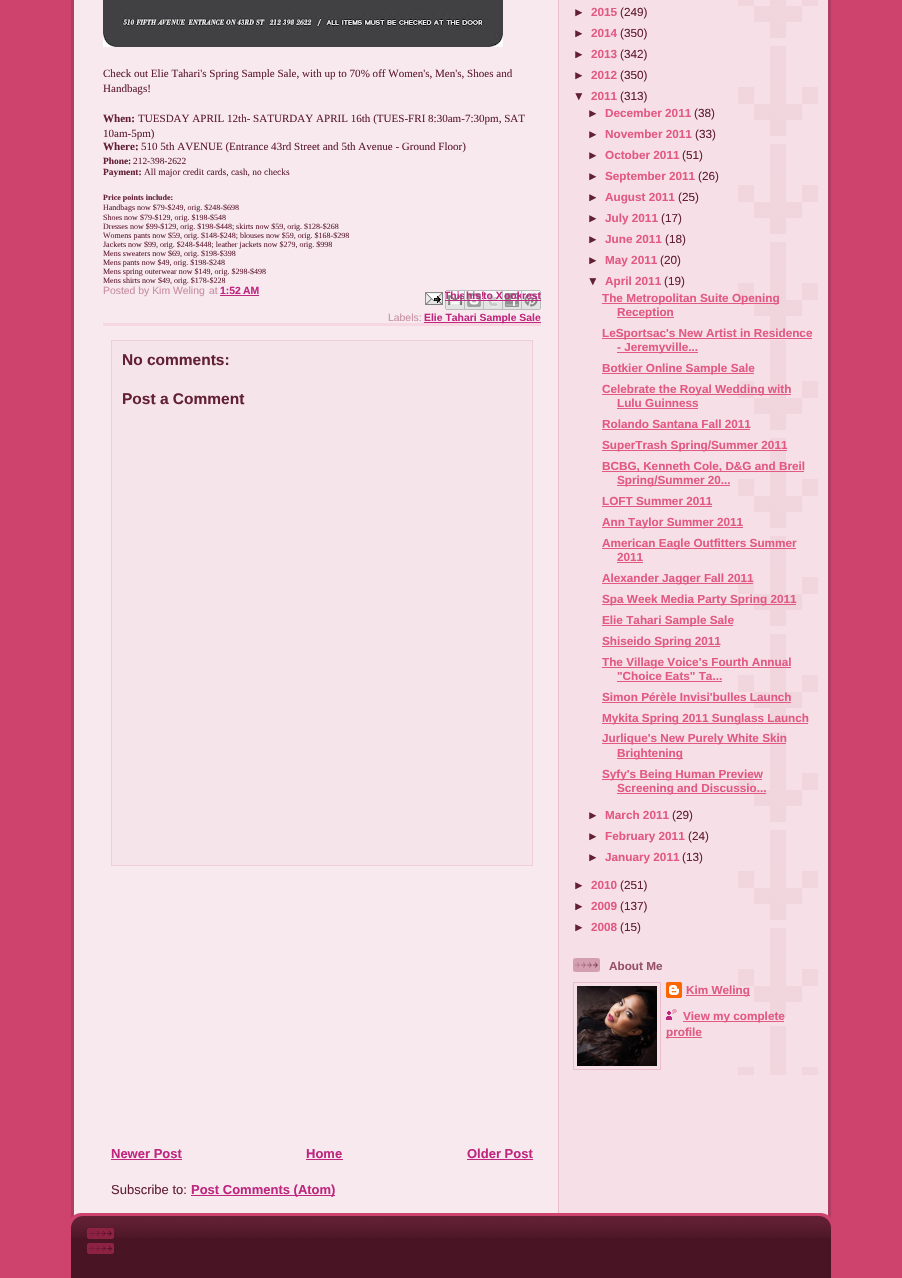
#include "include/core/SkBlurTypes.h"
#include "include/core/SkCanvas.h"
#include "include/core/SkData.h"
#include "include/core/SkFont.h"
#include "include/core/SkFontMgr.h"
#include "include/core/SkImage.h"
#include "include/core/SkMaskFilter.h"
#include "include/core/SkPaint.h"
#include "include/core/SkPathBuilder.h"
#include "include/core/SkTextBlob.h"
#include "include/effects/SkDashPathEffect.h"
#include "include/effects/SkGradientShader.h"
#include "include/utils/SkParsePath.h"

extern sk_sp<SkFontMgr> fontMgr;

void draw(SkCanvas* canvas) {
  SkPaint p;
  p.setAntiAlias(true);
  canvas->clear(SkColorSetRGB(206, 67, 110));
  canvas->drawImageRect(SkImages::DeferredFromEncodedData(SkData::MakeFromFileName("images/1.png")), SkRect::MakeLTRB(71, 0, 831, 1213), SkSamplingOptions());
  p.setColor(SkColorSetRGB(247, 216, 226));
  canvas->drawRect(SkRect::MakeLTRB(103, 323, 541, 326), p);
  canvas->drawImageRect(SkImages::DeferredFromEncodedData(SkData::MakeFromFileName("images/2.png")), SkRect::MakeLTRB(103, 0, 503, 47), SkSamplingOptions());
  p.setColor(SkColorSetRGB(191, 39, 126));
  canvas->drawRect(SkRect::MakeLTRB(220, 295, 259, 296), p);
  canvas->drawImageRect(SkImages::DeferredFromEncodedData(SkData::MakeFromFileName("images/3.png")), SkRect::MakeLTRB(425, 292, 443, 305), SkSamplingOptions());
  canvas->drawImageRect(SkImages::DeferredFromEncodedData(SkData::MakeFromFileName("images/4.png")), SkRect::MakeLTRB(445, 290, 464, 310), SkSamplingOptions());
  canvas->drawRect(SkRect::MakeLTRB(445, 300, 465, 301), p);
  canvas->drawRect(SkRect::MakeLTRB(424, 322, 541, 323), p);
  p.setColor(SkColorSetRGB(245, 228, 233));
  canvas->drawRect(SkRect::MakeLTRB(111.5f, 340.5f, 532.5f, 865.5f), p);
  p.setStyle(SkPaint::kStroke_Style);
  p.setStrokeWidth(1);
  p.setColor(SkColorSetRGB(240, 206, 216));
  canvas->drawRect(SkRect::MakeLTRB(111.5f, 340.5f, 532.5f, 865.5f), p);
  p.setStyle(SkPaint::kFill_Style);
  p.setColor(SkColorSetRGB(191, 39, 126));
  canvas->drawRect(SkRect::MakeLTRB(111, 1159, 182, 1160), p);
  canvas->drawRect(SkRect::MakeLTRB(306, 1159, 343, 1160), p);
  canvas->drawRect(SkRect::MakeLTRB(467, 1159, 533, 1160), p);
  canvas->drawRect(SkRect::MakeLTRB(191, 1195, 335, 1196), p);
  canvas->drawImageRect(SkImages::DeferredFromEncodedData(SkData::MakeFromFileName("images/9.png")), SkRect::MakeLTRB(738, 0, 818, 1075), SkSamplingOptions());
  p.setColor(SkColorSetRGB(226, 89, 132));
  canvas->drawRect(SkRect::MakeLTRB(602, 303, 779, 304), p);
  canvas->drawRect(SkRect::MakeLTRB(617, 317, 674, 318), p);
  canvas->drawRect(SkRect::MakeLTRB(602, 338, 812, 339), p);
  canvas->drawRect(SkRect::MakeLTRB(617, 352, 698, 353), p);
  canvas->drawRect(SkRect::MakeLTRB(602, 373, 754, 374), p);
  canvas->drawRect(SkRect::MakeLTRB(602, 394, 791, 395), p);
  canvas->drawRect(SkRect::MakeLTRB(617, 408, 698, 409), p);
  canvas->drawRect(SkRect::MakeLTRB(602, 429, 750, 430), p);
  canvas->drawRect(SkRect::MakeLTRB(602, 450, 787, 451), p);
  canvas->drawRect(SkRect::MakeLTRB(602, 471, 804, 472), p);
  canvas->drawRect(SkRect::MakeLTRB(617, 485, 730, 486), p);
  canvas->drawRect(SkRect::MakeLTRB(602, 506, 712, 507), p);
  canvas->drawRect(SkRect::MakeLTRB(602, 527, 743, 528), p);
  canvas->drawRect(SkRect::MakeLTRB(602, 548, 796, 549), p);
  canvas->drawRect(SkRect::MakeLTRB(617, 562, 643, 563), p);
  canvas->drawRect(SkRect::MakeLTRB(602, 583, 753, 584), p);
  canvas->drawRect(SkRect::MakeLTRB(602, 604, 796, 605), p);
  canvas->drawRect(SkRect::MakeLTRB(602, 625, 733, 626), p);
  canvas->drawRect(SkRect::MakeLTRB(602, 646, 720, 647), p);
  canvas->drawRect(SkRect::MakeLTRB(602, 667, 791, 668), p);
  canvas->drawRect(SkRect::MakeLTRB(617, 681, 722, 682), p);
  canvas->drawRect(SkRect::MakeLTRB(602, 702, 791, 703), p);
  canvas->drawRect(SkRect::MakeLTRB(602, 723, 808, 724), p);
  canvas->drawRect(SkRect::MakeLTRB(602, 743, 786, 744), p);
  canvas->drawRect(SkRect::MakeLTRB(617, 758, 683, 759), p);
  canvas->drawRect(SkRect::MakeLTRB(602, 779, 762, 780), p);
  canvas->drawRect(SkRect::MakeLTRB(617, 793, 766, 794), p);
  canvas->drawImageRect(SkImages::DeferredFromEncodedData(SkData::MakeFromFileName("images/10.png")), SkRect::MakeLTRB(573, 958, 600, 972), SkSamplingOptions());
  p.setStyle(SkPaint::kStroke_Style);
  p.setColor(SkColorSetRGB(235, 189, 204));
  canvas->drawRect(SkRect::MakeLTRB(573.5f, 982.5f, 660.5f, 1069.5f), p);
  canvas->drawImageRect(SkImages::DeferredFromEncodedData(SkData::MakeFromFileName("images/11.png")), SkRect::MakeLTRB(577, 986, 657, 1066), SkSamplingOptions());
  canvas->drawImageRect(SkImages::DeferredFromEncodedData(SkData::MakeFromFileName("images/12.png")), SkRect::MakeLTRB(666, 982, 682, 998), SkSamplingOptions());
  p.setStyle(SkPaint::kFill_Style);
  p.setColor(SkColorSetRGB(226, 89, 132));
  canvas->drawRect(SkRect::MakeLTRB(686, 995, 750, 996), p);
  canvas->drawImageRect(SkImages::DeferredFromEncodedData(SkData::MakeFromFileName("images/13.png")), SkRect::MakeLTRB(666, 1009, 677, 1020), SkSamplingOptions());
  canvas->drawRect(SkRect::MakeLTRB(683, 1021, 784, 1022), p);
  canvas->drawRect(SkRect::MakeLTRB(666, 1037, 702, 1038), p);
  canvas->drawImageRect(SkImages::DeferredFromEncodedData(SkData::MakeFromFileName("images/14.png")), SkRect::MakeLTRB(71, 1213, 831, 1228), SkSamplingOptions());
  p.setColor(SkColorSetRGB(73, 21, 37));
  canvas->drawRect(SkRect::MakeLTRB(71, 1238, 831, 1278), p);
  canvas->drawImageRect(SkImages::DeferredFromEncodedData(SkData::MakeFromFileName("images/15.png")), SkRect::MakeLTRB(71, 1228, 831, 1238), SkSamplingOptions());
  canvas->drawImageRect(SkImages::DeferredFromEncodedData(SkData::MakeFromFileName("images/16.png")), SkRect::MakeLTRB(87, 1228, 114, 1239), SkSamplingOptions());
  canvas->drawImageRect(SkImages::DeferredFromEncodedData(SkData::MakeFromFileName("images/17.png")), SkRect::MakeLTRB(87, 1243, 114, 1254), SkSamplingOptions());
  SkFont font1(fontMgr->matchFamilyStyle("Liberation Serif", SkFontStyle::Normal()), 11.05f);
  font1.setSubpixel(true);
  p.setColor(SkColorSetRGB(99, 32, 53));
  canvas->drawString("Check out Elie Tahari's Spring Sample Sale, with up to 70% off Women's, Men's, Shoes and", 103, 77, font1, p);
  canvas->drawString("Handbags!", 103, 92, font1, p);
  SkFont font2(fontMgr->matchFamilyStyle("Liberation Serif", SkFontStyle::Bold()), 11.05f);
  font2.setSubpixel(true);
  canvas->drawString("When:", 103, 122, font2, p);
  canvas->drawString("TUESDAY APRIL 12th- SATURDAY APRIL 16th (TUES-FRI 8:30am-7:30pm, SAT", 138, 122, font1, p);
  canvas->drawString("10am-5pm)", 103, 137, font1, p);
  canvas->drawString("Where:", 103, 150, font2, p);
  canvas->drawString("510 5th AVENUE (Entrance 43rd Street and 5th Avenue - Ground Floor)", 141, 150, font1, p);
  SkFont font3(fontMgr->matchFamilyStyle("Liberation Serif", SkFontStyle::Bold()), 9.4f);
  font3.setSubpixel(true);
  canvas->drawString("Phone:", 103, 164, font3, p);
  SkFont font4(fontMgr->matchFamilyStyle("Liberation Serif", SkFontStyle::Normal()), 9.4f);
  font4.setSubpixel(true);
  canvas->drawString("212-398-2622", 133, 164, font4, p);
  canvas->drawString("Payment:", 103, 175, font3, p);
  canvas->drawString("All major credit cards, cash, no checks", 144, 175, font4, p);
  SkFont font5(fontMgr->matchFamilyStyle("Liberation Serif", SkFontStyle::Bold()), 8);
  font5.setSubpixel(true);
  canvas->drawString("Price points include:", 103, 200, font5, p);
  SkFont font6(fontMgr->matchFamilyStyle("Liberation Serif", SkFontStyle::Normal()), 8);
  font6.setSubpixel(true);
  canvas->drawString("Handbags now $79-$249, orig. $248-$698", 103, 210, font6, p);
  canvas->drawString("Shoes now $79-$129, orig. $198-$548", 103, 220, font6, p);
  canvas->drawString("Dresses now $99-$129, orig. $198-$448; skirts now $59, orig. $128-$268", 103, 229, font6, p);
  canvas->drawString("Womens pants now $59, orig. $148-$248; blouses now $59, orig. $168-$298", 103, 238, font6, p);
  canvas->drawString("Jackets now $99, orig. $248-$448; leather jackets now $279, orig. $998", 103, 247, font6, p);
  canvas->drawString("Mens sweaters now $69, orig. $198-$398", 103, 256, font6, p);
  canvas->drawString("Mens pants now $49, orig. $198-$248", 103, 265, font6, p);
  canvas->drawString("Mens spring outerwear now $149, orig. $298-$498", 103, 274, font6, p);
  canvas->drawString("Mens shirts now $49, orig. $178-$228", 103, 283, font6, p);
  SkFont font7(fontMgr->matchFamilyStyle("Liberation Sans", SkFontStyle::Normal()), 10.4f);
  font7.setSubpixel(true);
  p.setColor(SkColorSetRGB(200, 143, 162));
  canvas->drawString("Posted by Kim Weling", 103, 294, font7, p);
  canvas->drawString("at", 209, 294, font7, p);
  SkFont font8(fontMgr->matchFamilyStyle("Liberation Sans", SkFontStyle::Bold()), 10.4f);
  font8.setSubpixel(true);
  p.setColor(SkColorSetRGB(191, 39, 126));
  canvas->drawString("1:52 AM", 220, 294, font8, p);
  canvas->save();
  canvas->clipRect(SkRect::MakeLTRB(445, 290, 465, 310));
  canvas->drawString("This", 444, 299, font8, p);
  canvas->restore();
  canvas->drawImageRect(SkImages::DeferredFromEncodedData(SkData::MakeFromFileName("images/5.png")), SkRect::MakeLTRB(464, 290, 483, 310), SkSamplingOptions());
  canvas->drawString("his!", 466, 299, font8, p);
  canvas->drawRect(SkRect::MakeLTRB(464, 300, 484, 301), p);
  canvas->drawImageRect(SkImages::DeferredFromEncodedData(SkData::MakeFromFileName("images/6.png")), SkRect::MakeLTRB(483, 290, 502, 310), SkSamplingOptions());
  canvas->drawString("to X", 483, 299, font8, p);
  canvas->drawRect(SkRect::MakeLTRB(483, 300, 503, 301), p);
  canvas->drawImageRect(SkImages::DeferredFromEncodedData(SkData::MakeFromFileName("images/7.png")), SkRect::MakeLTRB(502, 290, 521, 310), SkSamplingOptions());
  canvas->drawString("ook", 504, 299, font8, p);
  canvas->drawRect(SkRect::MakeLTRB(502, 300, 522, 301), p);
  canvas->drawImageRect(SkImages::DeferredFromEncodedData(SkData::MakeFromFileName("images/8.png")), SkRect::MakeLTRB(521, 290, 541, 310), SkSamplingOptions());
  canvas->drawString("rest", 522, 299, font8, p);
  canvas->drawRect(SkRect::MakeLTRB(521, 300, 541, 301), p);
  p.setColor(SkColorSetRGB(200, 143, 162));
  canvas->drawString("Labels:", 388, 321, font7, p);
  p.setColor(SkColorSetRGB(191, 39, 126));
  canvas->drawString("Elie Tahari Sample Sale", 424, 321, font8, p);
  SkFont font9(fontMgr->matchFamilyStyle("Liberation Sans", SkFontStyle::Bold()), 15.5f);
  font9.setSubpixel(true);
  p.setColor(SkColorSetRGB(99, 32, 53));
  canvas->drawString("No comments:", 122, 365, font9, p);
  canvas->drawString("Post a Comment", 122, 404, font9, p);
  SkFont font10(fontMgr->matchFamilyStyle("Liberation Sans", SkFontStyle::Bold()), 13);
  font10.setSubpixel(true);
  p.setColor(SkColorSetRGB(191, 39, 126));
  canvas->drawString("Newer Post", 111, 1158, font10, p);
  canvas->drawString("Home", 306, 1158, font10, p);
  canvas->drawString("Older Post", 467, 1158, font10, p);
  SkFont font11(fontMgr->matchFamilyStyle("Liberation Sans", SkFontStyle::Normal()), 13);
  font11.setSubpixel(true);
  p.setColor(SkColorSetRGB(99, 32, 53));
  canvas->drawString("Subscribe to:", 111, 1194, font11, p);
  p.setColor(SkColorSetRGB(191, 39, 126));
  canvas->drawString("Post Comments (Atom)", 191, 1194, font10, p);
  SkFont font12(fontMgr->matchFamilyStyle("Liberation Sans", SkFontStyle::Bold()), 11.75f);
  font12.setSubpixel(true);
  p.setColor(SkColorSetRGB(99, 32, 53));
  canvas->drawString("►", 573, 16, font12, p);
  p.setColor(SkColorSetRGB(226, 89, 132));
  canvas->drawString("2015", 591, 16, font12, p);
  SkFont font13(fontMgr->matchFamilyStyle("Liberation Sans", SkFontStyle::Normal()), 11.75f);
  font13.setSubpixel(true);
  p.setColor(SkColorSetRGB(99, 32, 53));
  canvas->drawString("(249)", 620, 16, font13, p);
  canvas->drawString("►", 573, 37, font12, p);
  p.setColor(SkColorSetRGB(226, 89, 132));
  canvas->drawString("2014", 591, 37, font12, p);
  p.setColor(SkColorSetRGB(99, 32, 53));
  canvas->drawString("(350)", 620, 37, font13, p);
  canvas->drawString("►", 573, 58, font12, p);
  p.setColor(SkColorSetRGB(226, 89, 132));
  canvas->drawString("2013", 591, 58, font12, p);
  p.setColor(SkColorSetRGB(99, 32, 53));
  canvas->drawString("(342)", 620, 58, font13, p);
  canvas->drawString("►", 573, 79, font12, p);
  p.setColor(SkColorSetRGB(226, 89, 132));
  canvas->drawString("2012", 591, 79, font12, p);
  p.setColor(SkColorSetRGB(99, 32, 53));
  canvas->drawString("(350)", 620, 79, font13, p);
  canvas->drawString("▼", 573, 100, font12, p);
  p.setColor(SkColorSetRGB(226, 89, 132));
  canvas->drawString("2011", 591, 100, font12, p);
  p.setColor(SkColorSetRGB(99, 32, 53));
  canvas->drawString("(313)", 620, 100, font13, p);
  canvas->drawString("►", 587, 117, font12, p);
  p.setColor(SkColorSetRGB(226, 89, 132));
  canvas->drawString("December 2011", 605, 117, font12, p);
  p.setColor(SkColorSetRGB(99, 32, 53));
  canvas->drawString("(38)", 694, 117, font13, p);
  canvas->drawString("►", 587, 138, font12, p);
  p.setColor(SkColorSetRGB(226, 89, 132));
  canvas->drawString("November 2011", 605, 138, font12, p);
  p.setColor(SkColorSetRGB(99, 32, 53));
  canvas->drawString("(33)", 695, 138, font13, p);
  canvas->drawString("►", 587, 159, font12, p);
  p.setColor(SkColorSetRGB(226, 89, 132));
  canvas->drawString("October 2011", 605, 159, font12, p);
  p.setColor(SkColorSetRGB(99, 32, 53));
  canvas->drawString("(51)", 682, 159, font13, p);
  canvas->drawString("►", 587, 180, font12, p);
  p.setColor(SkColorSetRGB(226, 89, 132));
  canvas->drawString("September 2011", 605, 180, font12, p);
  p.setColor(SkColorSetRGB(99, 32, 53));
  canvas->drawString("(26)", 698, 180, font13, p);
  canvas->drawString("►", 587, 201, font12, p);
  p.setColor(SkColorSetRGB(226, 89, 132));
  canvas->drawString("August 2011", 605, 201, font12, p);
  p.setColor(SkColorSetRGB(99, 32, 53));
  canvas->drawString("(25)", 678, 201, font13, p);
  canvas->drawString("►", 587, 222, font12, p);
  p.setColor(SkColorSetRGB(226, 89, 132));
  canvas->drawString("July 2011", 605, 222, font12, p);
  p.setColor(SkColorSetRGB(99, 32, 53));
  canvas->drawString("(17)", 661, 222, font13, p);
  canvas->drawString("►", 587, 243, font12, p);
  p.setColor(SkColorSetRGB(226, 89, 132));
  canvas->drawString("June 2011", 605, 243, font12, p);
  p.setColor(SkColorSetRGB(99, 32, 53));
  canvas->drawString("(18)", 665, 243, font13, p);
  canvas->drawString("►", 587, 264, font12, p);
  p.setColor(SkColorSetRGB(226, 89, 132));
  canvas->drawString("May 2011", 605, 264, font12, p);
  p.setColor(SkColorSetRGB(99, 32, 53));
  canvas->drawString("(20)", 660, 264, font13, p);
  canvas->drawString("▼", 587, 285, font12, p);
  p.setColor(SkColorSetRGB(226, 89, 132));
  canvas->drawString("April 2011", 605, 285, font12, p);
  p.setColor(SkColorSetRGB(99, 32, 53));
  canvas->drawString("(19)", 664, 285, font13, p);
  p.setColor(SkColorSetRGB(226, 89, 132));
  canvas->drawString("The Metropolitan Suite Opening", 602, 302, font12, p);
  canvas->drawString("Reception", 617, 316, font12, p);
  canvas->drawString("LeSportsac's New Artist in Residence", 602, 337, font12, p);
  canvas->drawString("- Jeremyville...", 617, 351, font12, p);
  canvas->drawString("Botkier Online Sample Sale", 602, 372, font12, p);
  canvas->drawString("Celebrate the Royal Wedding with", 602, 393, font12, p);
  canvas->drawString("Lulu Guinness", 617, 407, font12, p);
  canvas->drawString("Rolando Santana Fall 2011", 602, 428, font12, p);
  canvas->drawString("SuperTrash Spring/Summer 2011", 602, 449, font12, p);
  canvas->drawString("BCBG, Kenneth Cole, D&G and Breil", 602, 470, font12, p);
  canvas->drawString("Spring/Summer 20...", 617, 484, font12, p);
  canvas->drawString("LOFT Summer 2011", 602, 505, font12, p);
  canvas->drawString("Ann Taylor Summer 2011", 602, 526, font12, p);
  canvas->drawString("American Eagle Outfitters Summer", 602, 547, font12, p);
  canvas->drawString("2011", 617, 561, font12, p);
  canvas->drawString("Alexander Jagger Fall 2011", 602, 582, font12, p);
  canvas->drawString("Spa Week Media Party Spring 2011", 602, 603, font12, p);
  canvas->drawString("Elie Tahari Sample Sale", 602, 624, font12, p);
  canvas->drawString("Shiseido Spring 2011", 602, 645, font12, p);
  canvas->drawString("The Village Voice's Fourth Annual", 602, 666, font12, p);
  canvas->drawString("\"Choice Eats\" Ta...", 617, 680, font12, p);
  canvas->drawString("Simon Pérèle Invisi'bulles Launch", 602, 701, font12, p);
  canvas->drawString("Mykita Spring 2011 Sunglass Launch", 602, 722, font12, p);
  canvas->drawString("Jurlique's New Purely White Skin", 602, 742, font12, p);
  canvas->drawString("Brightening", 617, 757, font12, p);
  canvas->drawString("Syfy's Being Human Preview", 602, 778, font12, p);
  canvas->drawString("Screening and Discussio...", 617, 792, font12, p);
  p.setColor(SkColorSetRGB(99, 32, 53));
  canvas->drawString("►", 587, 819, font12, p);
  p.setColor(SkColorSetRGB(226, 89, 132));
  canvas->drawString("March 2011", 605, 819, font12, p);
  p.setColor(SkColorSetRGB(99, 32, 53));
  canvas->drawString("(29)", 672, 819, font13, p);
  canvas->drawString("►", 587, 840, font12, p);
  p.setColor(SkColorSetRGB(226, 89, 132));
  canvas->drawString("February 2011", 605, 840, font12, p);
  p.setColor(SkColorSetRGB(99, 32, 53));
  canvas->drawString("(24)", 688, 840, font13, p);
  canvas->drawString("►", 587, 861, font12, p);
  p.setColor(SkColorSetRGB(226, 89, 132));
  canvas->drawString("January 2011", 605, 861, font12, p);
  p.setColor(SkColorSetRGB(99, 32, 53));
  canvas->drawString("(13)", 682, 861, font13, p);
  canvas->drawString("►", 573, 889, font12, p);
  p.setColor(SkColorSetRGB(226, 89, 132));
  canvas->drawString("2010", 591, 889, font12, p);
  p.setColor(SkColorSetRGB(99, 32, 53));
  canvas->drawString("(251)", 620, 889, font13, p);
  canvas->drawString("►", 573, 910, font12, p);
  p.setColor(SkColorSetRGB(226, 89, 132));
  canvas->drawString("2009", 591, 910, font12, p);
  p.setColor(SkColorSetRGB(99, 32, 53));
  canvas->drawString("(137)", 620, 910, font13, p);
  canvas->drawString("►", 573, 931, font12, p);
  p.setColor(SkColorSetRGB(226, 89, 132));
  canvas->drawString("2008", 591, 931, font12, p);
  p.setColor(SkColorSetRGB(99, 32, 53));
  canvas->drawString("(15)", 620, 931, font13, p);
  p.setColor(SkColorSetRGB(149, 82, 106));
  canvas->drawString("About Me", 609, 970, font12, p);
  p.setColor(SkColorSetRGB(226, 89, 132));
  canvas->drawString("Kim Weling", 686, 994, font12, p);
  canvas->drawString("View my complete", 683, 1020, font12, p);
  canvas->drawString("profile", 666, 1036, font12, p);
}
